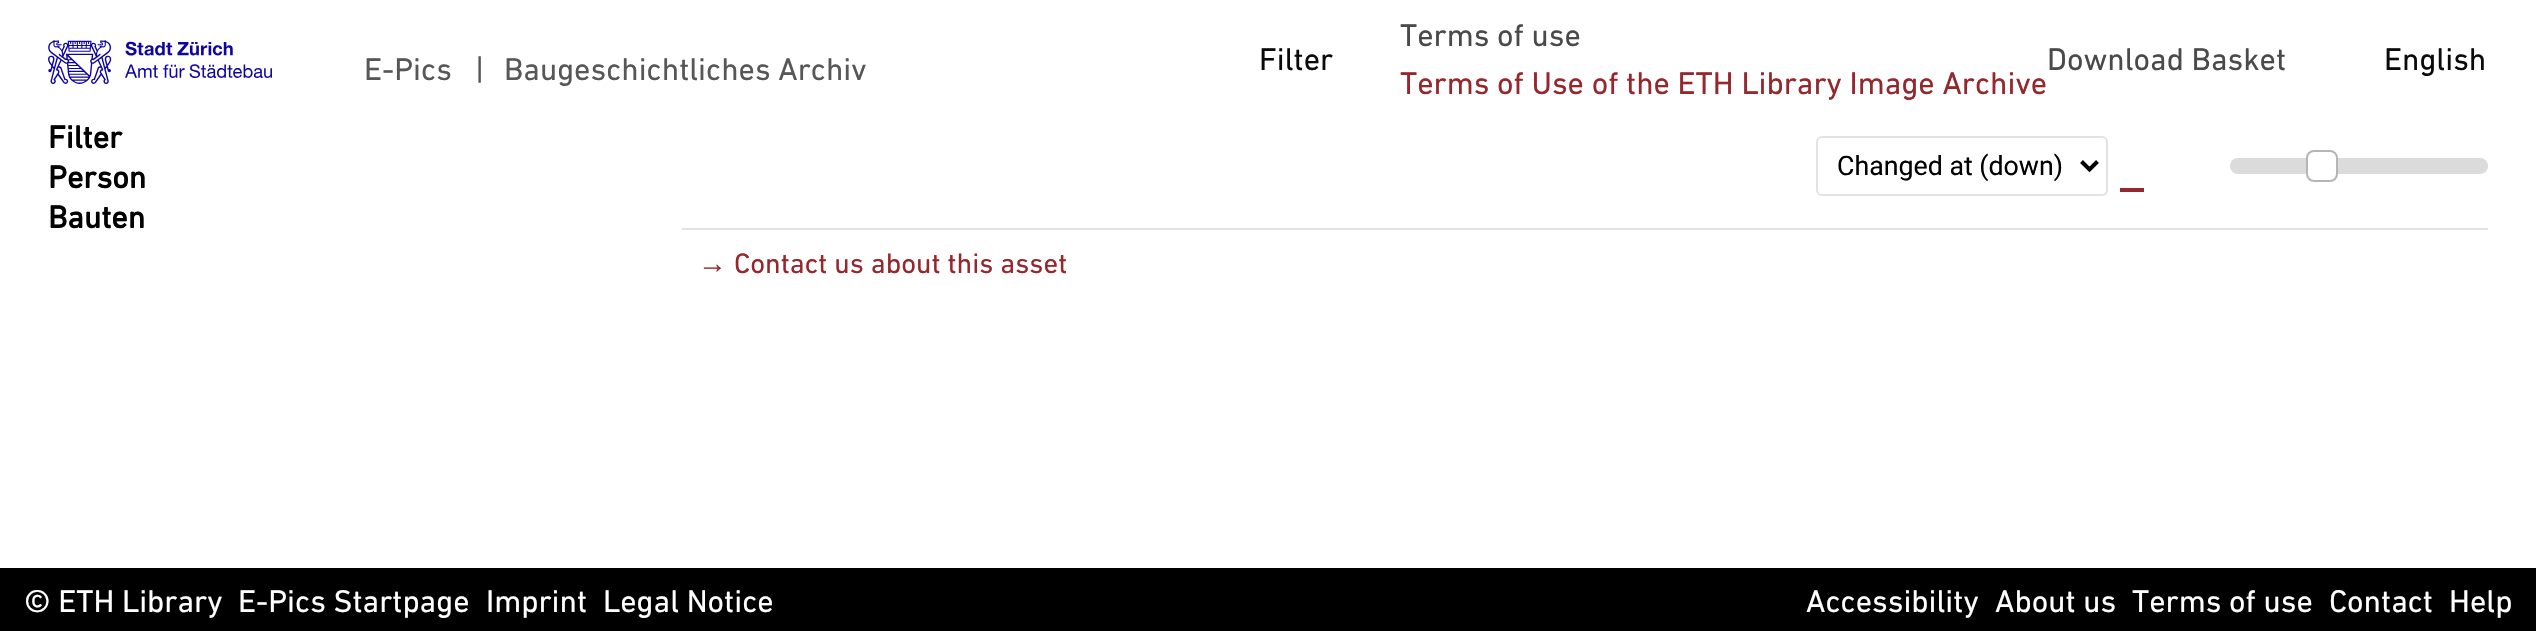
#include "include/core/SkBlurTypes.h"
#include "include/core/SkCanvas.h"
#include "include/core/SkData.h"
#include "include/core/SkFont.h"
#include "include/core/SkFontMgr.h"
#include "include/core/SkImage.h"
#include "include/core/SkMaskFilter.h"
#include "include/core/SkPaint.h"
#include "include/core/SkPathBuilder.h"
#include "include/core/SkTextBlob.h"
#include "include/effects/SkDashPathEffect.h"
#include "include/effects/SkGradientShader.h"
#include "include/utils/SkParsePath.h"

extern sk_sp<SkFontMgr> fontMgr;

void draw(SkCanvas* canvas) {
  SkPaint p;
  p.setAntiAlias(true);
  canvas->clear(SK_ColorWHITE);
  canvas->drawImageRect(SkImages::DeferredFromEncodedData(SkData::MakeFromFileName("images/1.png")), SkRect::MakeLTRB(48, 40, 272, 84), SkSamplingOptions());
  p.setStyle(SkPaint::kStroke_Style);
  p.setStrokeWidth(2);
  p.setColor(SkColorSetRGB(226, 226, 226));
  canvas->drawRoundRect(SkRect::MakeLTRB(1817, 137, 2107, 195), 5, 5, p);
  p.setStrokeWidth(4);
  p.setColor(SK_ColorBLACK);
  canvas->drawPath(SkPathBuilder().moveTo(2081.5f, 161.5f).lineTo(2089.5f, 169.5f).lineTo(2097.5f, 161.5f).detach(), p);
  p.setStyle(SkPaint::kFill_Style);
  p.setColor(SkColorSetRGB(219, 219, 219));
  canvas->drawRoundRect(SkRect::MakeLTRB(2230, 158, 2488, 174), 8, 8, p);
  p.setColor(SK_ColorWHITE);
  canvas->drawRoundRect(SkRect::MakeLTRB(2307, 151, 2337, 181), 7, 7, p);
  p.setStyle(SkPaint::kStroke_Style);
  p.setStrokeWidth(2);
  p.setColor(SkColorSetRGB(181, 181, 181));
  canvas->drawRoundRect(SkRect::MakeLTRB(2307, 151, 2337, 181), 7, 7, p);
  p.setStyle(SkPaint::kFill_Style);
  p.setColor(SkColorSetRGB(150, 39, 45));
  canvas->drawRect(SkRect::MakeLTRB(2120, 188, 2144, 192), p);
  p.setColor(SkColorSetRGB(226, 226, 226));
  canvas->drawRect(SkRect::MakeLTRB(682, 228, 2488, 230), p);
  p.setColor(SK_ColorBLACK);
  canvas->drawRect(SkRect::MakeLTRB(0, 568, 2536, 631), p);
  SkFont font1(fontMgr->matchFamilyStyle("DIN Next", SkFontStyle::Normal()), 32);
  font1.setSubpixel(true);
  p.setColor(SkColorSetRGB(87, 87, 87));
  canvas->drawString("E-Pics", 364, 80, font1, p);
  canvas->drawString("|", 475, 80, font1, p);
  canvas->drawString("Baugeschichtliches Archiv", 504, 80, font1, p);
  p.setColor(SkColorSetRGB(10, 10, 10));
  canvas->drawString("Filter", 1259, 70, font1, p);
  p.setColor(SkColorSetRGB(74, 74, 74));
  canvas->drawString("Terms of use", 1400, 46, font1, p);
  p.setColor(SkColorSetRGB(150, 39, 45));
  canvas->drawString("Terms of Use of the ETH Library Image Archive", 1400, 94, font1, p);
  p.setColor(SkColorSetRGB(74, 74, 74));
  canvas->drawString("Download Basket", 2047, 70, font1, p);
  p.setColor(SkColorSetRGB(10, 10, 10));
  canvas->drawString("English", 2384, 70, font1, p);
  SkFont font2(fontMgr->matchFamilyStyle("DIN Next", SkFontStyle::Bold()), 32);
  font2.setSubpixel(true);
  p.setColor(SK_ColorBLACK);
  canvas->drawString("Filter", 48, 148, font2, p);
  canvas->drawString("Person", 48, 188, font2, p);
  canvas->drawString("Bauten", 48, 228, font2, p);
  SkFont font3(fontMgr->matchFamilyStyle("Roboto", SkFontStyle::Normal()), 26.75f);
  font3.setSubpixel(true);
  canvas->drawString("Changed at (down)", 1837, 175, font3, p);
  SkFont font4(fontMgr->matchFamilyStyle("Liberation Sans", SkFontStyle::Normal()), 28.75f);
  font4.setSubpixel(true);
  p.setColor(SkColorSetRGB(150, 39, 45));
  canvas->drawString("→", 698, 273, font4, p);
  SkFont font5(fontMgr->matchFamilyStyle("DIN Next", SkFontStyle::Normal()), 28.75f);
  font5.setSubpixel(true);
  canvas->drawString("Contact us about this asset", 734, 273, font5, p);
  p.setColor(SK_ColorWHITE);
  canvas->drawString("© ETH Library", 24, 612, font1, p);
  canvas->drawString("E-Pics Startpage", 238, 612, font1, p);
  canvas->drawString("Imprint", 486, 612, font1, p);
  canvas->drawString("Legal Notice", 603, 612, font1, p);
  canvas->drawString("Accessibility", 1806, 612, font1, p);
  canvas->drawString("About us", 1995, 612, font1, p);
  canvas->drawString("Terms of use", 2132, 612, font1, p);
  canvas->drawString("Contact", 2329, 612, font1, p);
  canvas->drawString("Help", 2449, 612, font1, p);
}
